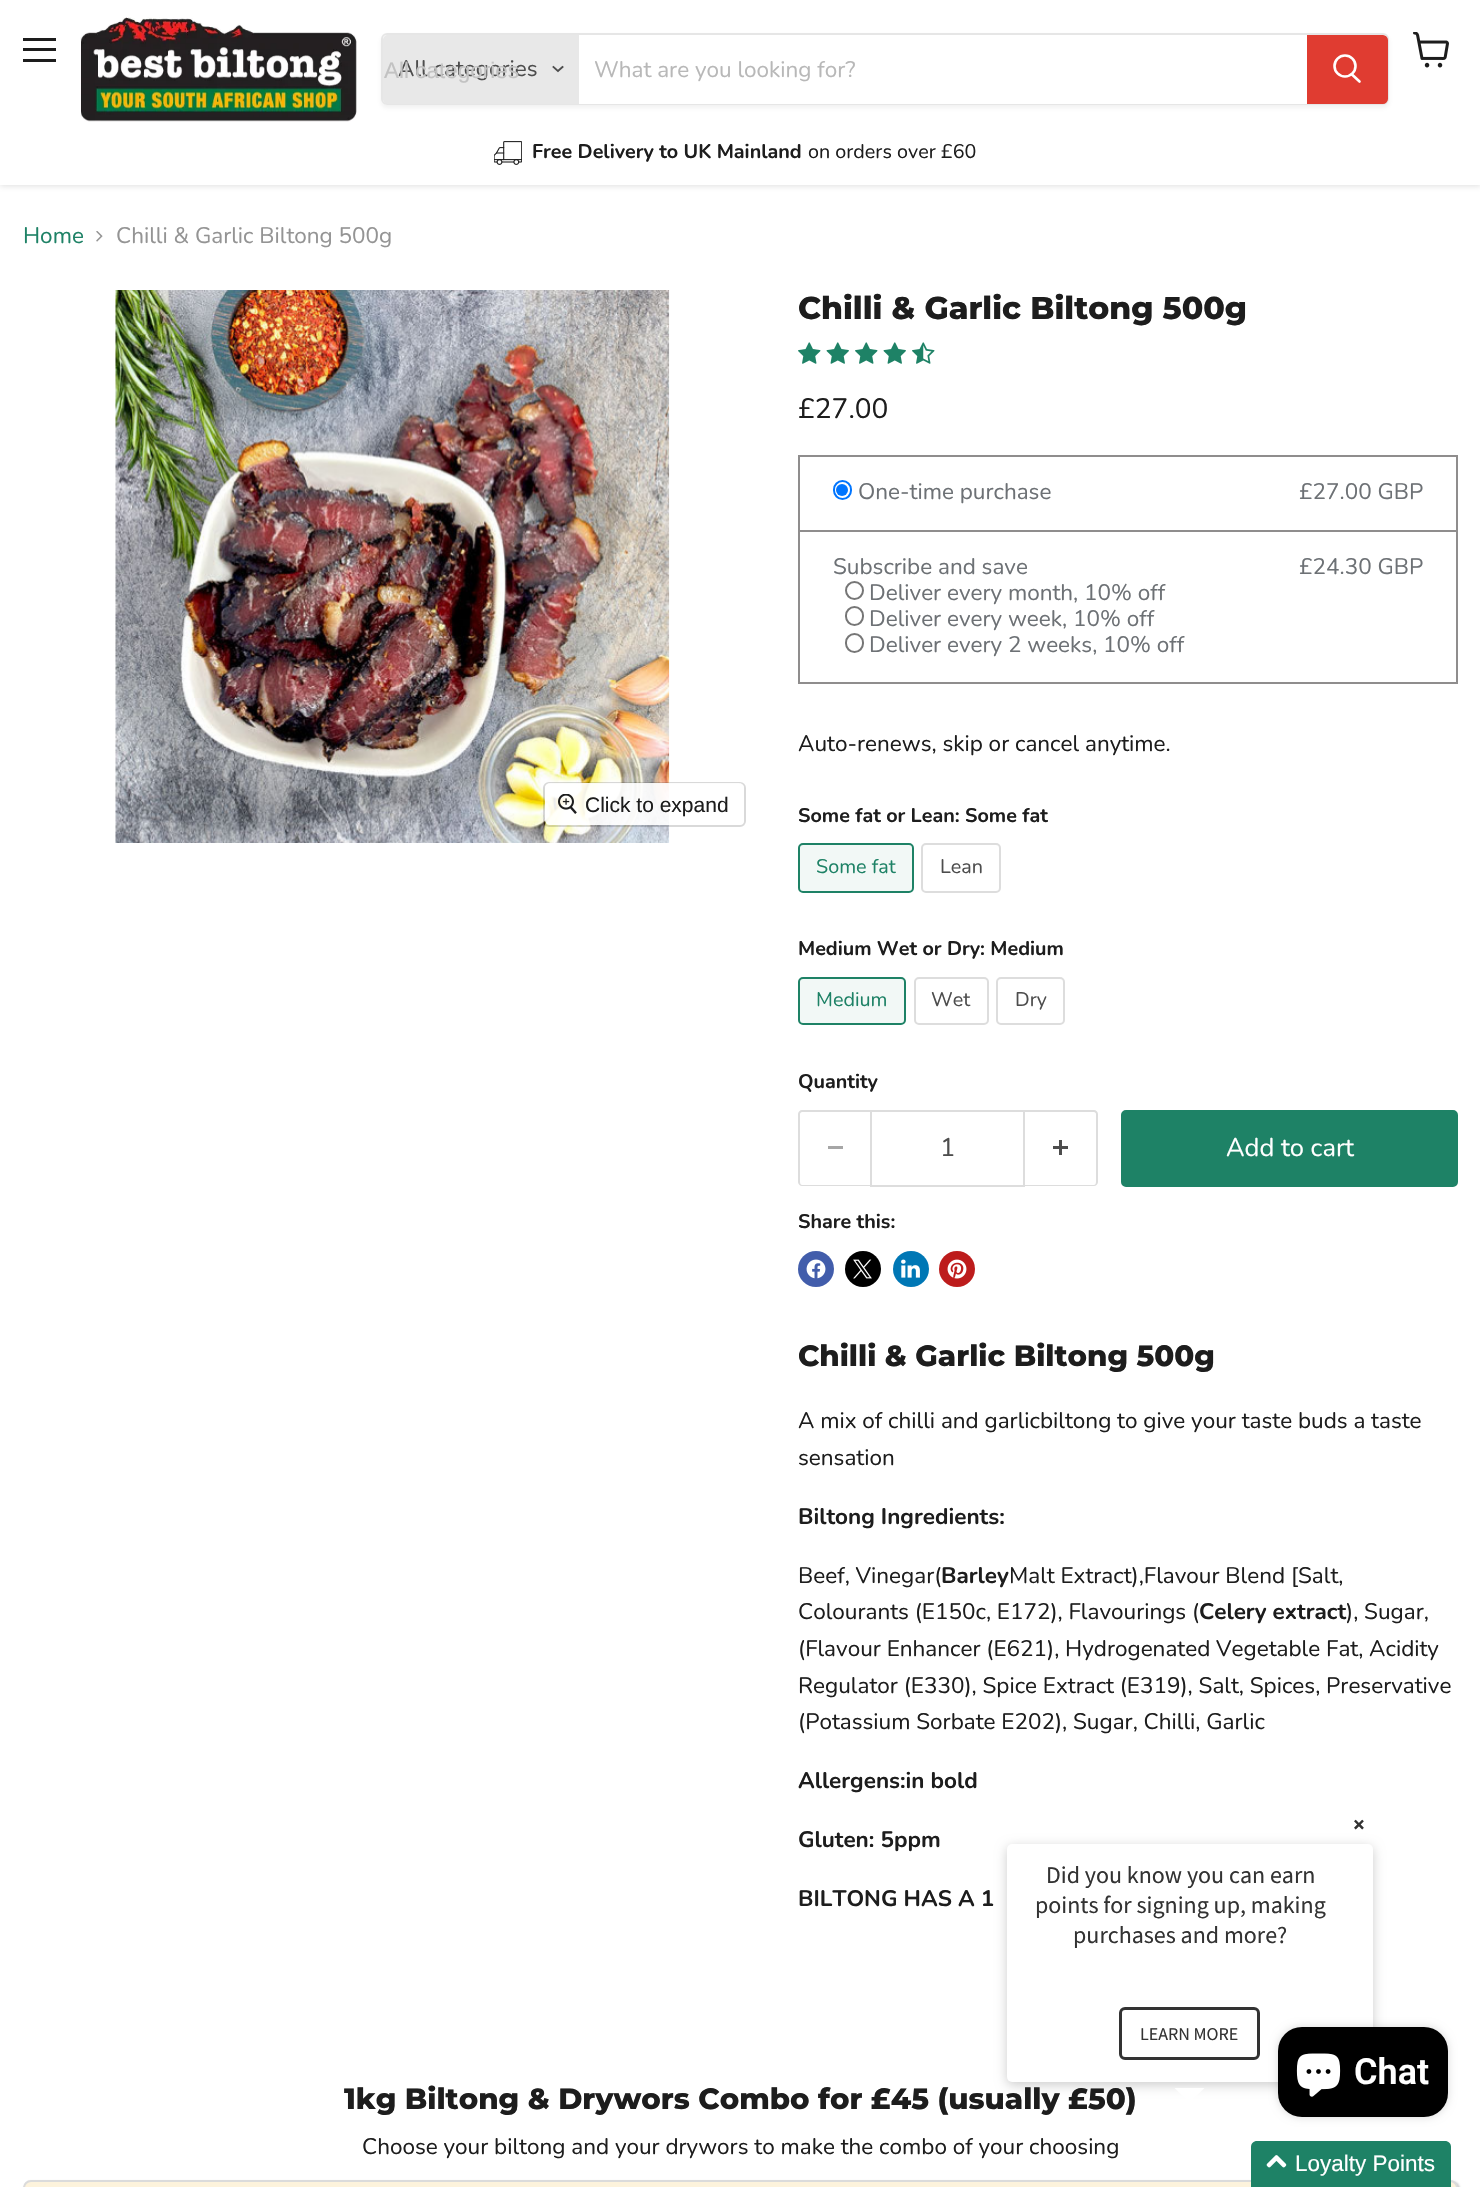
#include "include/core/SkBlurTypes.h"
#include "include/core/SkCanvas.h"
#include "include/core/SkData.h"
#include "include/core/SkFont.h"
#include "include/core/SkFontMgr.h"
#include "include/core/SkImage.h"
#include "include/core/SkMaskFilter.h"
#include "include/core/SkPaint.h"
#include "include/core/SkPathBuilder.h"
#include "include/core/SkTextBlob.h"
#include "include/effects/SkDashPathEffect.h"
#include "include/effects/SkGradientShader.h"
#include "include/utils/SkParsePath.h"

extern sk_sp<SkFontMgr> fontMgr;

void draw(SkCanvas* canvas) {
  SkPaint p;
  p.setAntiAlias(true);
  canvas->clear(SK_ColorWHITE);
  p.setColor(SkColorSetARGB(64, 128, 128, 128));
  p.setMaskFilter(SkMaskFilter::MakeBlur(kNormal_SkBlurStyle, 3));
  canvas->drawRect(SkRect::MakeLTRB(0, 2, 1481, 186), p);
  p.setMaskFilter(nullptr);
  p.setColor(SK_ColorWHITE);
  canvas->drawRect(SkRect::MakeLTRB(0, 0, 1480, 185), p);
  p.setColor(SkColorSetRGB(29, 29, 29));
  canvas->drawRect(SkRect::MakeLTRB(23, 38, 56, 41), p);
  canvas->drawRect(SkRect::MakeLTRB(23, 48, 56, 51), p);
  canvas->drawRect(SkRect::MakeLTRB(23, 59, 56, 62), p);
  canvas->drawImageRect(SkImages::DeferredFromEncodedData(SkData::MakeFromFileName("images/1.png")), SkRect::MakeLTRB(1413, 32, 1449, 68), SkSamplingOptions());
  canvas->drawImageRect(SkImages::DeferredFromEncodedData(SkData::MakeFromFileName("images/2.png")), SkRect::MakeLTRB(80, 17, 357, 122), SkSamplingOptions());
  canvas->save();
  canvas->clipPath(SkPathBuilder(SkPathFillType::kEvenOdd).moveTo(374, 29).lineTo(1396, 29).lineTo(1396, 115).lineTo(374, 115).close().moveTo(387, 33).lineTo(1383, 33).cubicTo(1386.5f, 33, 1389, 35.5f, 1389, 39).lineTo(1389, 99).cubicTo(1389, 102.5f, 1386.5f, 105, 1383, 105).lineTo(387, 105).cubicTo(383.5f, 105, 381, 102.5f, 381, 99).lineTo(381, 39).cubicTo(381, 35.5f, 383.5f, 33, 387, 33).close().detach(), true);
  p.setColor(SkColorSetARGB(28, 128, 128, 128));
  p.setMaskFilter(SkMaskFilter::MakeBlur(kNormal_SkBlurStyle, 2));
  canvas->drawRoundRect(SkRect::MakeLTRB(381, 36, 1389, 108), 6, 6, p);
  p.setMaskFilter(nullptr);
  canvas->restore();
  p.setStyle(SkPaint::kStroke_Style);
  p.setStrokeWidth(2);
  p.setColor(SkColorSetARGB(51, 128, 128, 128));
  canvas->drawRoundRect(SkRect::MakeLTRB(382, 34, 1388, 104), 5, 5, p);
  p.setStyle(SkPaint::kFill_Style);
  p.setColor(SkColorSetRGB(232, 232, 232));
  canvas->drawPath(SkPathBuilder().moveTo(388, 35).lineTo(579, 35).lineTo(579, 104).lineTo(388, 104).cubicTo(385, 104, 383, 102, 383, 99).lineTo(383, 40).cubicTo(383, 37, 385, 35, 388, 35).close().detach(), p);
  p.setStyle(SkPaint::kStroke_Style);
  p.setStrokeWidth(1.9f);
  p.setStrokeCap(SkPaint::kSquare_Cap);
  p.setColor(SkColorSetRGB(77, 77, 77));
  canvas->drawPath(SkPathBuilder().moveTo(558, 71).lineTo(562.5f, 67).moveTo(558, 71).lineTo(553.5f, 67).detach(), p);
  p.setStyle(SkPaint::kFill_Style);
  p.setColor(SK_ColorWHITE);
  canvas->drawRect(SkRect::MakeLTRB(579, 103, 1307, 104), p);
  p.setColor(SkColorSetRGB(224, 60, 49));
  canvas->drawPath(SkPathBuilder().moveTo(1308, 36).lineTo(1383, 36).cubicTo(1385, 36, 1387, 38, 1387, 40).lineTo(1387, 99).cubicTo(1387, 101, 1385, 103, 1383, 103).lineTo(1308, 103).close().detach(), p);
  p.setStyle(SkPaint::kStroke_Style);
  p.setStrokeWidth(2);
  p.setStrokeCap(SkPaint::kButt_Cap);
  canvas->drawPath(SkPathBuilder().moveTo(1308, 36).lineTo(1383, 36).cubicTo(1385, 36, 1387, 38, 1387, 40).lineTo(1387, 99).cubicTo(1387, 101, 1385, 103, 1383, 103).lineTo(1308, 103).close().detach(), p);
  p.setStrokeWidth(2.6f);
  p.setStrokeCap(SkPaint::kRound_Cap);
  p.setColor(SK_ColorWHITE);
  canvas->drawPath(SkPathBuilder().moveTo(1359.5f, 81.5f).lineTo(1352, 74.5f).detach(), p);
  p.setStrokeCap(SkPaint::kButt_Cap);
  canvas->drawCircle(1345, 66, 10.5f, p);
  canvas->drawImageRect(SkImages::DeferredFromEncodedData(SkData::MakeFromFileName("images/3.png")), SkRect::MakeLTRB(494, 141, 522, 165), SkSamplingOptions());
  canvas->drawImageRect(SkImages::DeferredFromEncodedData(SkData::MakeFromFileName("images/4.png")), SkRect::MakeLTRB(96, 231, 103, 242), SkSamplingOptions());
  canvas->drawImageRect(SkImages::DeferredFromEncodedData(SkData::MakeFromFileName("images/5.png")), SkRect::MakeLTRB(115, 290, 670, 843), SkSamplingOptions());
  p.setStrokeWidth(2);
  p.setColor(SkColorSetARGB(38, 0, 0, 0));
  canvas->drawRoundRect(SkRect::MakeLTRB(544, 783, 745, 826), 5, 5, p);
  p.setStyle(SkPaint::kFill_Style);
  p.setColor(SkColorSetARGB(230, 255, 255, 255));
  canvas->drawRoundRect(SkRect::MakeLTRB(545, 783, 744, 825), 5, 5, p);
  canvas->drawImageRect(SkImages::DeferredFromEncodedData(SkData::MakeFromFileName("images/6.png")), SkRect::MakeLTRB(558, 794, 577, 814), SkSamplingOptions());
  canvas->drawImageRect(SkImages::DeferredFromEncodedData(SkData::MakeFromFileName("images/7.png")), SkRect::MakeLTRB(798, 342, 821, 364), SkSamplingOptions());
  canvas->drawImageRect(SkImages::DeferredFromEncodedData(SkData::MakeFromFileName("images/8.png")), SkRect::MakeLTRB(826, 342, 849, 364), SkSamplingOptions());
  canvas->drawImageRect(SkImages::DeferredFromEncodedData(SkData::MakeFromFileName("images/7.png")), SkRect::MakeLTRB(855, 342, 878, 364), SkSamplingOptions());
  canvas->drawImageRect(SkImages::DeferredFromEncodedData(SkData::MakeFromFileName("images/8.png")), SkRect::MakeLTRB(883, 342, 906, 364), SkSamplingOptions());
  canvas->drawImageRect(SkImages::DeferredFromEncodedData(SkData::MakeFromFileName("images/9.png")), SkRect::MakeLTRB(912, 342, 935, 364), SkSamplingOptions());
  p.setStyle(SkPaint::kStroke_Style);
  p.setColor(SkColorSetRGB(143, 141, 141));
  canvas->drawRect(SkRect::MakeLTRB(799, 456, 1457, 683), p);
  p.setStyle(SkPaint::kFill_Style);
  canvas->drawRect(SkRect::MakeLTRB(800, 530, 1457, 532), p);
  p.setStyle(SkPaint::kStroke_Style);
  p.setColor(SkColorSetRGB(0, 117, 255));
  canvas->drawRoundRect(SkRect::MakeLTRB(834, 481, 851, 499), 8.5f, 8.5f, p);
  p.setStyle(SkPaint::kFill_Style);
  canvas->drawCircle(842, 490, 6, p);
  p.setStyle(SkPaint::kStroke_Style);
  p.setColor(SkColorSetRGB(118, 118, 118));
  canvas->drawCircle(854.5f, 590.5f, 8.5f, p);
  canvas->drawRoundRect(SkRect::MakeLTRB(846, 607, 863, 625), 8.5f, 8.5f, p);
  canvas->drawRoundRect(SkRect::MakeLTRB(846, 634, 863, 652), 8.5f, 8.5f, p);
  p.setStyle(SkPaint::kFill_Style);
  p.setColor(SkColorSetRGB(242, 248, 246));
  canvas->drawRoundRect(SkRect::MakeLTRB(799, 844, 913, 892), 4, 4, p);
  p.setStyle(SkPaint::kStroke_Style);
  p.setColor(SkColorSetRGB(30, 130, 102));
  canvas->drawRoundRect(SkRect::MakeLTRB(799, 844, 913, 892), 4, 4, p);
  p.setColor(SkColorSetRGB(221, 221, 221));
  canvas->drawRoundRect(SkRect::MakeLTRB(922, 844, 1000, 892), 4, 4, p);
  p.setStyle(SkPaint::kFill_Style);
  p.setColor(SkColorSetRGB(242, 248, 246));
  canvas->drawRoundRect(SkRect::MakeLTRB(799, 978, 905, 1024), 4, 4, p);
  p.setStyle(SkPaint::kStroke_Style);
  p.setColor(SkColorSetRGB(30, 130, 102));
  canvas->drawRoundRect(SkRect::MakeLTRB(799, 978, 905, 1024), 4, 4, p);
  p.setColor(SkColorSetRGB(221, 221, 221));
  canvas->drawRoundRect(SkRect::MakeLTRB(915, 978, 988, 1024), 4, 4, p);
  canvas->drawRoundRect(SkRect::MakeLTRB(997, 978, 1064, 1024), 4, 4, p);
  p.setStyle(SkPaint::kFill_Style);
  canvas->drawPath(SkPathBuilder(SkPathFillType::kEvenOdd).moveTo(802, 1110).lineTo(870, 1110).lineTo(870, 1186).lineTo(802, 1186).cubicTo(800, 1186, 798, 1184, 798, 1182).lineTo(798, 1114).cubicTo(798, 1112, 800, 1110, 802, 1110).close().moveTo(802, 1112).lineTo(870, 1112).lineTo(870, 1185).lineTo(802, 1185).cubicTo(801, 1185, 800, 1184, 800, 1182).lineTo(800, 1114).cubicTo(800, 1113, 801, 1112, 802, 1112).close().detach(), p);
  p.setColor(SkColorSetRGB(166, 166, 166));
  canvas->drawRect(SkRect::MakeLTRB(828, 1146, 843, 1149), p);
  p.setStyle(SkPaint::kStroke_Style);
  p.setColor(SkColorSetRGB(221, 221, 221));
  canvas->drawRect(SkRect::MakeLTRB(871, 1111, 1024, 1186), p);
  p.setStyle(SkPaint::kFill_Style);
  canvas->drawPath(SkPathBuilder(SkPathFillType::kEvenOdd).moveTo(1024, 1110).lineTo(1094, 1110).cubicTo(1096, 1110, 1098, 1112, 1098, 1114).lineTo(1098, 1182).cubicTo(1098, 1184, 1096, 1186, 1094, 1186).lineTo(1024, 1186).close().moveTo(1024, 1112).lineTo(1094, 1112).cubicTo(1095, 1112, 1096, 1113, 1096, 1114).lineTo(1096, 1182).cubicTo(1096, 1184, 1095, 1185, 1094, 1185).lineTo(1024, 1185).close().detach(), p);
  canvas->drawImageRect(SkImages::DeferredFromEncodedData(SkData::MakeFromFileName("images/10.png")), SkRect::MakeLTRB(1053, 1140, 1068, 1155), SkSamplingOptions());
  p.setColor(SkColorSetRGB(30, 130, 102));
  canvas->drawRoundRect(SkRect::MakeLTRB(1122, 1111, 1457, 1186), 4, 4, p);
  p.setStyle(SkPaint::kStroke_Style);
  canvas->drawRoundRect(SkRect::MakeLTRB(1122, 1111, 1457, 1186), 4, 4, p);
  p.setStyle(SkPaint::kFill_Style);
  p.setColor(SkColorSetRGB(66, 93, 171));
  canvas->drawCircle(816, 1269, 18, p);
  canvas->drawImageRect(SkImages::DeferredFromEncodedData(SkData::MakeFromFileName("images/11.png")), SkRect::MakeLTRB(806, 1259, 826, 1279), SkSamplingOptions());
  p.setColor(SK_ColorBLACK);
  canvas->drawCircle(863, 1269, 18, p);
  canvas->drawImageRect(SkImages::DeferredFromEncodedData(SkData::MakeFromFileName("images/12.png")), SkRect::MakeLTRB(853, 1259, 872, 1279), SkSamplingOptions());
  p.setColor(SkColorSetRGB(0, 119, 181));
  canvas->drawCircle(911, 1269, 18, p);
  canvas->drawImageRect(SkImages::DeferredFromEncodedData(SkData::MakeFromFileName("images/13.png")), SkRect::MakeLTRB(901, 1259, 920, 1278), SkSamplingOptions());
  p.setColor(SkColorSetRGB(189, 28, 28));
  canvas->drawCircle(957, 1269, 18, p);
  canvas->drawImageRect(SkImages::DeferredFromEncodedData(SkData::MakeFromFileName("images/14.png")), SkRect::MakeLTRB(947, 1259, 967, 1279), SkSamplingOptions());
  p.setColor(SkColorSetARGB(97, 128, 128, 128));
  p.setMaskFilter(SkMaskFilter::MakeBlur(kNormal_SkBlurStyle, 1));
  canvas->drawRoundRect(SkRect::MakeLTRB(24, 2181, 1460, 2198), 8, 8, p);
  p.setMaskFilter(nullptr);
  p.setColor(SkColorSetRGB(253, 243, 220));
  canvas->drawRoundRect(SkRect::MakeLTRB(24, 2181, 1457, 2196), 7, 7, p);
  p.setStyle(SkPaint::kStroke_Style);
  p.setColor(SkColorSetRGB(219, 219, 219));
  canvas->drawRoundRect(SkRect::MakeLTRB(24, 2181, 1457, 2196), 7, 7, p);
  p.setStyle(SkPaint::kFill_Style);
  p.setColor(SkColorSetARGB(51, 0, 0, 0));
  p.setMaskFilter(SkMaskFilter::MakeBlur(kNormal_SkBlurStyle, 6));
  canvas->drawRoundRect(SkRect::MakeLTRB(1007, 1847, 1373, 2085), 5, 5, p);
  p.setMaskFilter(nullptr);
  p.setColor(SK_ColorWHITE);
  canvas->drawRoundRect(SkRect::MakeLTRB(1007, 1844, 1373, 2082), 5, 5, p);
  p.setStyle(SkPaint::kStroke_Style);
  p.setStrokeWidth(3);
  p.setColor(SkColorSetRGB(51, 51, 51));
  canvas->drawRoundRect(SkRect::MakeLTRB(1120.5f, 2008.5f, 1258.5f, 2058.5f), 4.5f, 4.5f, p);
  p.setStyle(SkPaint::kFill_Style);
  p.setColor(SK_ColorWHITE);
  canvas->drawPath(SkPathBuilder().moveTo(1174.5f, 2088).lineTo(1204.5f, 2088).lineTo(1189.5f, 2103).close().detach(), p);
  p.setColor(SkColorSetRGB(30, 130, 102));
  canvas->drawPath(SkPathBuilder().moveTo(1257, 2141).lineTo(1445, 2141).cubicTo(1448.5f, 2141, 1451, 2143.5f, 1451, 2147).lineTo(1451, 2187).lineTo(1251, 2187).lineTo(1251, 2147).cubicTo(1251, 2143.5f, 1253.5f, 2141, 1257, 2141).close().detach(), p);
  canvas->drawImageRect(SkImages::DeferredFromEncodedData(SkData::MakeFromFileName("images/15.png")), SkRect::MakeLTRB(1266, 2155, 1287, 2168), SkSamplingOptions());
  p.setColor(SkColorSetARGB(38, 0, 0, 0));
  p.setMaskFilter(SkMaskFilter::MakeBlur(kNormal_SkBlurStyle, 4));
  canvas->drawRoundRect(SkRect::MakeLTRB(1278, 2027, 1448, 2117), 24, 24, p);
  p.setMaskFilter(nullptr);
  p.setColor(SK_ColorBLACK);
  canvas->drawRoundRect(SkRect::MakeLTRB(1278, 2027, 1448, 2117), 24, 24, p);
  canvas->drawImageRect(SkImages::DeferredFromEncodedData(SkData::MakeFromFileName("images/16.png")), SkRect::MakeLTRB(1296, 2053, 1341, 2097), SkSamplingOptions());
  SkFont font1(fontMgr->matchFamilyStyle("Nunito", SkFontStyle::Normal()), 22.5f);
  font1.setSubpixel(true);
  p.setColor(SkColorSetRGB(77, 77, 77));
  canvas->drawString("All categories", 398, 76, font1, p);
  SkFont font2(fontMgr->matchFamilyStyle("Liberation Sans", SkFontStyle::Normal()), 22.5f);
  font2.setSubpixel(true);
  p.setColor(SkColorSetRGB(194, 194, 194));
  canvas->drawString("All categories", 384, 78, font2, p);
  p.setColor(SkColorSetRGB(184, 184, 184));
  canvas->drawString("What are you looking for?", 594, 77, font1, p);
  SkFont font3(fontMgr->matchFamilyStyle("Nunito", SkFontStyle::Bold()), 19.75f);
  font3.setSubpixel(true);
  p.setColor(SkColorSetRGB(29, 29, 29));
  canvas->drawString("Free Delivery to UK Mainland", 532, 158, font3, p);
  SkFont font4(fontMgr->matchFamilyStyle("Nunito", SkFontStyle::Normal()), 19.75f);
  font4.setSubpixel(true);
  canvas->drawString("on orders over £60", 808, 158, font4, p);
  p.setColor(SkColorSetRGB(30, 130, 102));
  canvas->drawString("Home", 23, 243, font1, p);
  p.setColor(SkColorSetRGB(148, 148, 148));
  canvas->drawString("Chilli & Garlic Biltong 500g", 116, 243, font1, p);
  SkFont font5(fontMgr->matchFamilyStyle("Liberation Sans", SkFontStyle::Normal()), 21);
  font5.setSubpixel(true);
  p.setColor(SkColorSetRGB(29, 29, 29));
  canvas->drawString("Click to expand", 585, 812, font5, p);
  SkFont font6(fontMgr->matchFamilyStyle("Montserrat", SkFontStyle(800, SkFontStyle::kNormal_Width, SkFontStyle::kUpright_Slant)), 31.5f);
  font6.setSubpixel(true);
  canvas->drawString("Chilli & Garlic Biltong 500g", 798, 319, font6, p);
  SkFont font7(fontMgr->matchFamilyStyle("Nunito", SkFontStyle::Normal()), 28);
  font7.setSubpixel(true);
  canvas->drawString("£27.00", 798, 418, font7, p);
  p.setColor(SkColorSetRGB(109, 113, 117));
  canvas->drawString("One-time purchase", 858, 499, font1, p);
  canvas->drawString("£27.00 GBP", 1299, 499, font1, p);
  canvas->drawString("Subscribe and save", 833, 574, font1, p);
  canvas->drawString("£24.30 GBP", 1299, 574, font1, p);
  canvas->drawString("Deliver every month, 10% off", 869, 600, font1, p);
  canvas->drawString("Deliver every week, 10% off", 869, 626, font1, p);
  canvas->drawString("Deliver every 2 weeks, 10% off", 869, 652, font1, p);
  p.setColor(SkColorSetRGB(29, 29, 29));
  canvas->drawString("Auto-renews, skip or cancel anytime.", 798, 751, font1, p);
  canvas->drawString("Some fat or Lean: Some fat", 798, 822, font3, p);
  p.setColor(SkColorSetRGB(30, 130, 102));
  canvas->drawString("Some fat", 816, 873, font4, p);
  p.setColor(SkColorSetRGB(77, 77, 77));
  canvas->drawString("Lean", 940, 873, font4, p);
  p.setColor(SkColorSetRGB(29, 29, 29));
  canvas->drawString("Medium Wet or Dry: Medium", 798, 955, font3, p);
  p.setColor(SkColorSetRGB(30, 130, 102));
  canvas->drawString("Medium", 816, 1006, font4, p);
  p.setColor(SkColorSetRGB(77, 77, 77));
  canvas->drawString("Wet", 931, 1006, font4, p);
  canvas->drawString("Dry", 1015, 1006, font4, p);
  p.setColor(SkColorSetRGB(29, 29, 29));
  canvas->drawString("Quantity", 798, 1088, font3, p);
  SkFont font8(fontMgr->matchFamilyStyle("Nunito", SkFontStyle::Normal()), 25.5f);
  font8.setSubpixel(true);
  p.setColor(SkColorSetRGB(77, 77, 77));
  canvas->drawString("1", 940, 1156, font8, p);
  p.setColor(SK_ColorWHITE);
  canvas->drawString("Add to cart", 1226, 1156, font8, p);
  p.setColor(SkColorSetRGB(29, 29, 29));
  canvas->drawString("Share this:", 798, 1228, font3, p);
  SkFont font9(fontMgr->matchFamilyStyle("Montserrat", SkFontStyle(800, SkFontStyle::kNormal_Width, SkFontStyle::kUpright_Slant)), 29.25f);
  font9.setSubpixel(true);
  canvas->drawString("Chilli & Garlic Biltong 500g", 798, 1366, font9, p);
  canvas->drawString("A mix of chilli and garlicbiltong to give your taste buds a taste", 798, 1428, font1, p);
  canvas->drawString("sensation", 798, 1465, font1, p);
  SkFont font10(fontMgr->matchFamilyStyle("Nunito", SkFontStyle::Bold()), 22.5f);
  font10.setSubpixel(true);
  canvas->drawString("Biltong Ingredients:", 798, 1524, font10, p);
  canvas->drawString("Beef, Vinegar(", 798, 1583, font1, p);
  canvas->drawString("Barley", 941, 1583, font10, p);
  canvas->drawString("Malt Extract),Flavour Blend [Salt,", 1009, 1583, font1, p);
  canvas->drawString("Colourants (E150c, E172), Flavourings (", 798, 1619, font1, p);
  canvas->drawString("Celery extract", 1199, 1619, font10, p);
  canvas->drawString("), Sugar,", 1346, 1619, font1, p);
  canvas->drawString("(Flavour Enhancer (E621), Hydrogenated Vegetable Fat, Acidity", 798, 1656, font1, p);
  canvas->drawString("Regulator (E330), Spice Extract (E319), Salt, Spices, Preservative", 798, 1693, font1, p);
  canvas->drawString("(Potassium Sorbate E202), Sugar, Chilli, Garlic", 798, 1729, font1, p);
  canvas->drawString("Allergens:in bold", 798, 1788, font10, p);
  canvas->drawString("Gluten: 5ppm", 798, 1847, font10, p);
  canvas->drawString("BILTONG HAS A 1", 798, 1906, font10, p);
  canvas->drawString("1kg Biltong & Drywors Combo for £45 (usually £50)", 344, 2109, font9, p);
  canvas->drawString("Choose your biltong and your drywors to make the combo of your choosing", 362, 2154, font1, p);
  SkFont font11(fontMgr->matchFamilyStyle("Source Sans Pro", SkFontStyle::Bold()), 22.5f);
  font11.setSubpixel(true);
  p.setColor(SkColorSetRGB(51, 51, 51));
  canvas->drawString("×", 1353, 1832, font11, p);
  SkFont font12(fontMgr->matchFamilyStyle("Source Sans Pro", SkFontStyle::Normal()), 24);
  font12.setSubpixel(true);
  canvas->drawString("Did you know you can earn", 1046, 1883, font12, p);
  canvas->drawString("points for signing up, making", 1035, 1913, font12, p);
  canvas->drawString("purchases and more?", 1073, 1943, font12, p);
  SkFont font13(fontMgr->matchFamilyStyle("Source Sans Pro", SkFontStyle::Normal()), 18);
  font13.setSubpixel(true);
  canvas->drawString("LEARN MORE", 1140, 2040, font13, p);
  p.setColor(SK_ColorWHITE);
  canvas->drawString("Loyalty Points", 1295, 2171, font2, p);
  SkFont font14(fontMgr->matchFamilyStyle("Roboto", SkFontStyle(600, SkFontStyle::kNormal_Width, SkFontStyle::kUpright_Slant)), 36);
  font14.setSubpixel(true);
  canvas->drawString("Chat", 1354, 2084, font14, p);
}
